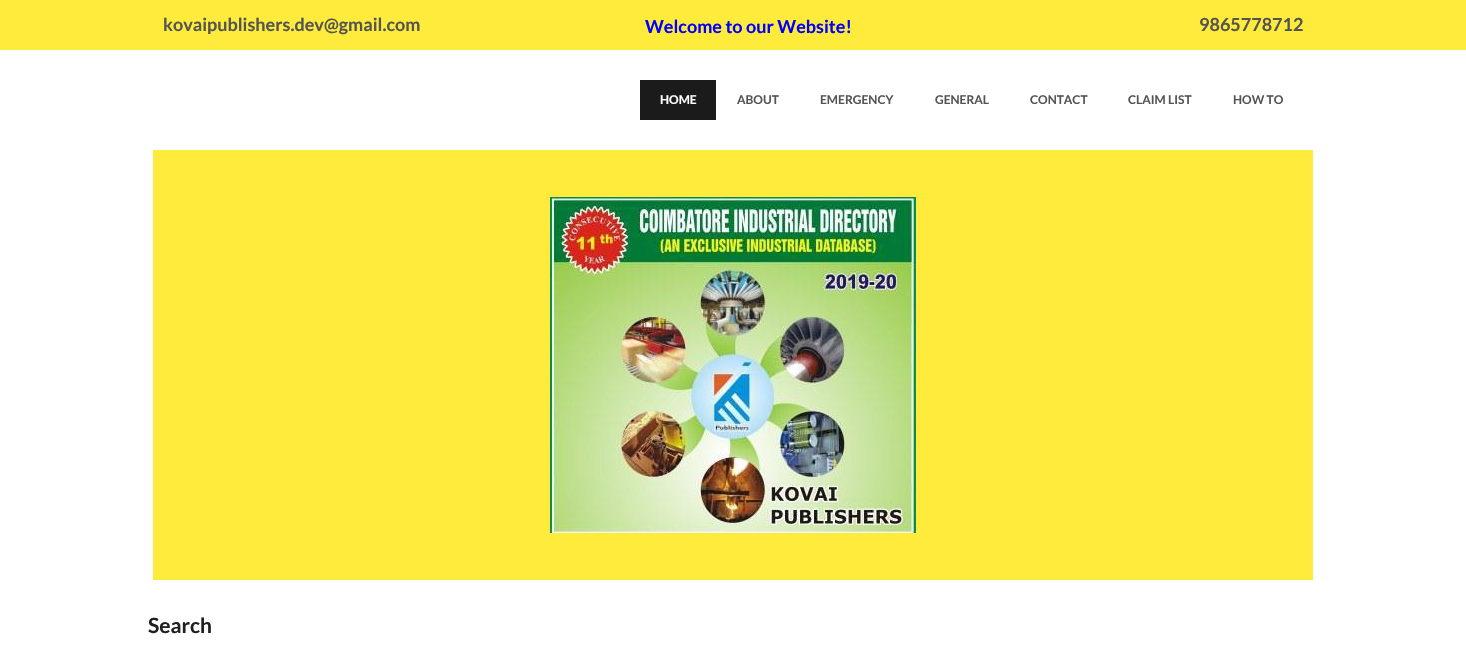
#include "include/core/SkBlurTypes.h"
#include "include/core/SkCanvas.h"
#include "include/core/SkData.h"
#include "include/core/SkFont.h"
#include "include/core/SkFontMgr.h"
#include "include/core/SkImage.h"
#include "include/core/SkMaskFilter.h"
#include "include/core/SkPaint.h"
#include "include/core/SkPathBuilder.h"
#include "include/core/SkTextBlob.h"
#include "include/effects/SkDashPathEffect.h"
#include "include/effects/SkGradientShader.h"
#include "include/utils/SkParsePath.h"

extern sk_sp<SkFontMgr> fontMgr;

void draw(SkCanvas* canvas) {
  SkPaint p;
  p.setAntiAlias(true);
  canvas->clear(SK_ColorWHITE);
  p.setColor(SkColorSetRGB(255, 235, 59));
  canvas->drawRect(SkRect::MakeLTRB(0, 0, 1466, 50), p);
  p.setColor(SkColorSetRGB(27, 27, 27));
  canvas->drawRect(SkRect::MakeLTRB(640, 80, 716, 120), p);
  p.setColor(SkColorSetRGB(255, 235, 59));
  canvas->drawRect(SkRect::MakeLTRB(153, 150, 1313, 580), p);
  canvas->drawImageRect(SkImages::DeferredFromEncodedData(SkData::MakeFromFileName("images/1.png")), SkRect::MakeLTRB(550, 197, 916, 533), SkSamplingOptions());
  SkFont font1(fontMgr->matchFamilyStyle("Lato", SkFontStyle::Bold()), 18);
  font1.setSubpixel(true);
  p.setColor(SkColorSetRGB(84, 84, 82));
  canvas->drawString("kovaipublishers.dev@gmail.com", 163, 31, font1, p);
  canvas->drawString("9865778712", 1199, 31, font1, p);
  SkFont font2(fontMgr->matchFamilyStyle("Lato", SkFontStyle::Bold()), 12);
  font2.setSubpixel(true);
  p.setColor(SK_ColorWHITE);
  canvas->drawString("HOME", 660, 104, font2, p);
  p.setColor(SkColorSetRGB(84, 84, 82));
  canvas->drawString("ABOUT", 737, 104, font2, p);
  canvas->drawString("EMERGENCY", 820, 104, font2, p);
  canvas->drawString("GENERAL", 935, 104, font2, p);
  canvas->drawString("CONTACT", 1030, 104, font2, p);
  canvas->drawString("CLAIM LIST", 1128, 104, font2, p);
  canvas->drawString("HOW TO", 1233, 104, font2, p);
  SkFont font3(fontMgr->matchFamilyStyle("Lato", SkFontStyle::Bold()), 21);
  font3.setSubpixel(true);
  p.setColor(SkColorSetRGB(35, 31, 32));
  canvas->drawString("Search", 148, 633, font3, p);
  p.setColor(SkColorSetRGB(0, 0, 255));
  canvas->drawString("Welcome to our Website!", 645, 33, font1, p);
}
